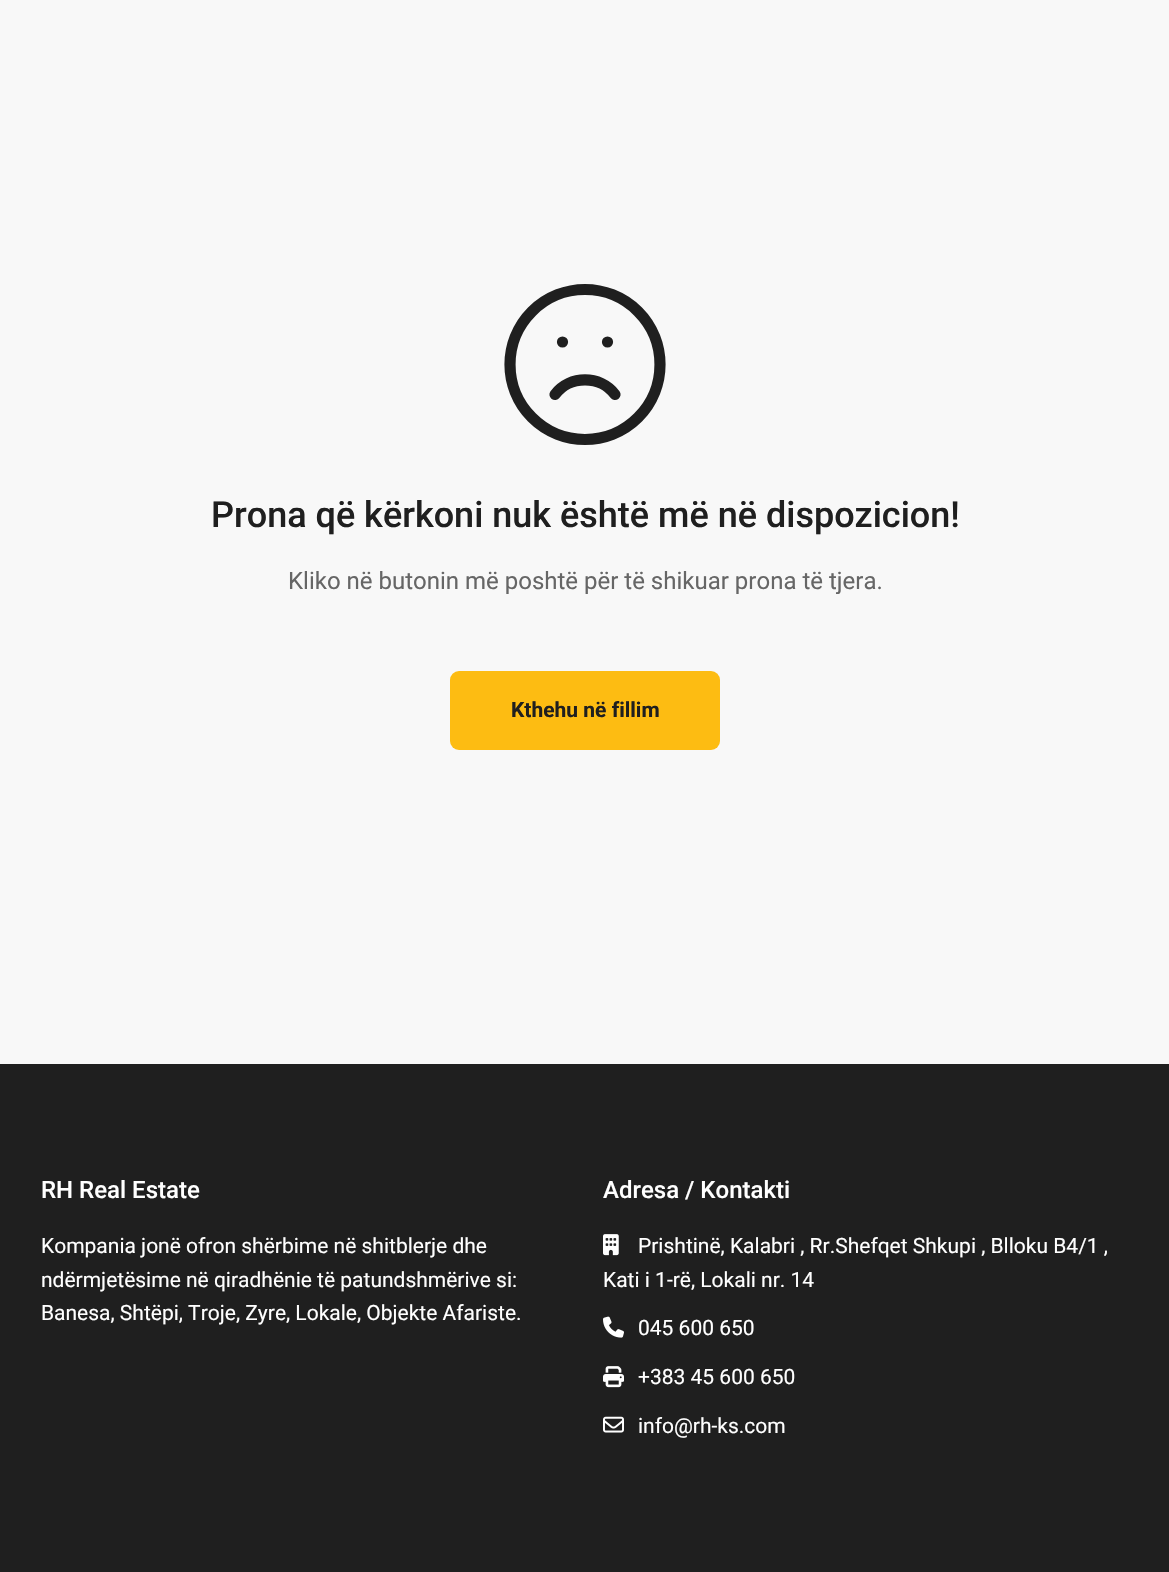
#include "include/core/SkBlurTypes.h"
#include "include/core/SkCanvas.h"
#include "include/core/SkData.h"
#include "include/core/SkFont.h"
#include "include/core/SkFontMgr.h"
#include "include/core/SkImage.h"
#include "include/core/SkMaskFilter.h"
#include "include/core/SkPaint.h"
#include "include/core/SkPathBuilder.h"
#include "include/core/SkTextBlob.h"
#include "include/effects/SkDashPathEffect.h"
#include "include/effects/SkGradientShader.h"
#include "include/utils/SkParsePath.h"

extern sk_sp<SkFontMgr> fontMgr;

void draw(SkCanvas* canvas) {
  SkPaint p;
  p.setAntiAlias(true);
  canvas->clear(SkColorSetRGB(248, 248, 248));
  p.setStyle(SkPaint::kStroke_Style);
  p.setStrokeWidth(11.2f);
  p.setColor(SkColorSetRGB(31, 31, 31));
  canvas->drawCircle(585, 364.5f, 75, p);
  p.setStrokeCap(SkPaint::kRound_Cap);
  p.setStrokeJoin(SkPaint::kRound_Join);
  canvas->drawPath(SkPathBuilder().moveTo(562.5f, 342).lineTo(562.5f, 342).moveTo(607.5f, 342).lineTo(607.5f, 342).detach(), p);
  canvas->drawPath(SkPathBuilder().moveTo(555, 394.5f).cubicTo(569.5f, 375, 600.5f, 375, 615, 394.5f).detach(), p);
  p.setStyle(SkPaint::kFill_Style);
  p.setColor(SkColorSetRGB(253, 188, 18));
  canvas->drawRoundRect(SkRect::MakeLTRB(450, 671, 720, 750), 9, 9, p);
  p.setColor(SkColorSetRGB(31, 31, 31));
  canvas->drawRect(SkRect::MakeLTRB(0, 1064, 1169, 1572), p);
  canvas->drawImageRect(SkImages::DeferredFromEncodedData(SkData::MakeFromFileName("images/1.png")), SkRect::MakeLTRB(603, 1234, 619, 1256), SkSamplingOptions());
  canvas->drawImageRect(SkImages::DeferredFromEncodedData(SkData::MakeFromFileName("images/2.png")), SkRect::MakeLTRB(603, 1316, 624, 1338), SkSamplingOptions());
  canvas->drawImageRect(SkImages::DeferredFromEncodedData(SkData::MakeFromFileName("images/3.png")), SkRect::MakeLTRB(603, 1366, 624, 1388), SkSamplingOptions());
  canvas->drawImageRect(SkImages::DeferredFromEncodedData(SkData::MakeFromFileName("images/4.png")), SkRect::MakeLTRB(603, 1416, 624, 1433), SkSamplingOptions());
  SkFont font1(fontMgr->matchFamilyStyle("Roboto", SkFontStyle(500, SkFontStyle::kNormal_Width, SkFontStyle::kUpright_Slant)), 36);
  font1.setSubpixel(true);
  canvas->drawString("Prona që kërkoni nuk është më në dispozicion!", 211, 527, font1, p);
  SkFont font2(fontMgr->matchFamilyStyle("Roboto", SkFontStyle::Normal()), 24);
  font2.setSubpixel(true);
  p.setColor(SkColorSetRGB(102, 102, 102));
  canvas->drawString("Kliko në butonin më poshtë për të shikuar prona të tjera.", 288, 589, font2, p);
  SkFont font3(fontMgr->matchFamilyStyle("Roboto", SkFontStyle::Bold()), 21);
  font3.setSubpixel(true);
  p.setColor(SkColorSetRGB(31, 31, 31));
  canvas->drawString("Kthehu në fillim", 511, 717, font3, p);
  SkFont font4(fontMgr->matchFamilyStyle("Roboto", SkFontStyle(500, SkFontStyle::kNormal_Width, SkFontStyle::kUpright_Slant)), 24);
  font4.setSubpixel(true);
  p.setColor(SK_ColorWHITE);
  canvas->drawString("RH Real Estate", 41, 1198, font4, p);
  SkFont font5(fontMgr->matchFamilyStyle("Roboto", SkFontStyle::Normal()), 21);
  font5.setSubpixel(true);
  canvas->drawString("Kompania jonë ofron shërbime në shitblerje dhe", 41, 1253, font5, p);
  canvas->drawString("ndërmjetësime në qiradhënie të patundshmërive si:", 41, 1287, font5, p);
  canvas->drawString("Banesa, Shtëpi, Troje, Zyre, Lokale, Objekte Afariste.", 41, 1320, font5, p);
  canvas->drawString("Adresa / Kontakti", 603, 1198, font4, p);
  canvas->drawString("Prishtinë, Kalabri , Rr.Shefqet Shkupi , Blloku B4/1 ,", 638, 1253, font5, p);
  canvas->drawString("Kati i 1-rë, Lokali nr. 14", 603, 1287, font5, p);
  canvas->drawString("045 600 650", 638, 1335, font5, p);
  canvas->drawString("+383 45 600 650", 638, 1384, font5, p);
  canvas->drawString("info@rh-ks.com", 638, 1433, font5, p);
}
